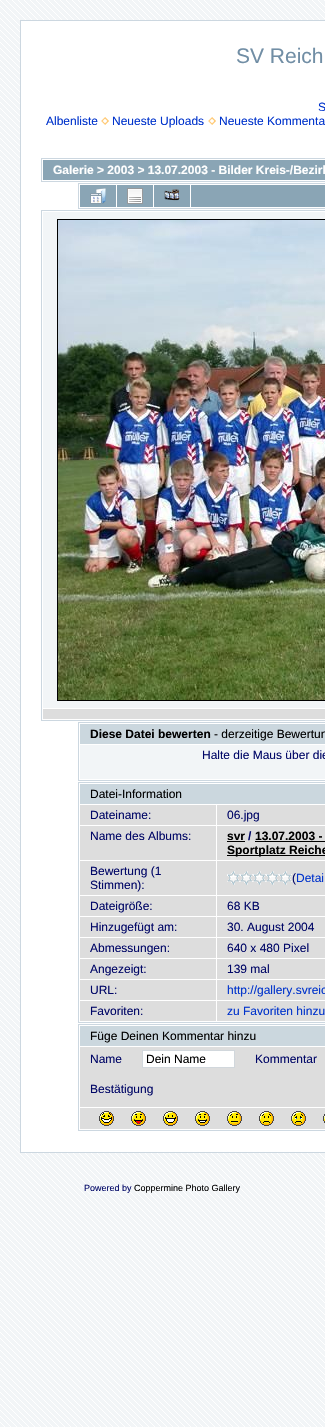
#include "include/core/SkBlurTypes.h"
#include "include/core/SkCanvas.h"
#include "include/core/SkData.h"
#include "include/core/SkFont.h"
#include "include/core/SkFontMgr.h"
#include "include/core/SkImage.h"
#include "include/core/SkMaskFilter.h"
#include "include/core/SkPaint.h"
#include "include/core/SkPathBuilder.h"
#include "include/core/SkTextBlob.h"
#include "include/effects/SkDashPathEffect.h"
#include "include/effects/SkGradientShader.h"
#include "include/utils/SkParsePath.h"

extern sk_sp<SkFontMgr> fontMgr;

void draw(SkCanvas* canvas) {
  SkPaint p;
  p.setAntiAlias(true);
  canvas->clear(SkColorSetRGB(242, 245, 247));
  canvas->drawImageRect(SkImages::DeferredFromEncodedData(SkData::MakeFromFileName("images/1.png")), SkRect::MakeLTRB(0, 0, 325, 1427), SkSamplingOptions());
  p.setColor(SK_ColorWHITE);
  canvas->drawRect(SkRect::MakeLTRB(20.5f, 20.5f, 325.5f, 1152.5f), p);
  p.setStyle(SkPaint::kStroke_Style);
  p.setStrokeWidth(1);
  p.setColor(SkColorSetRGB(204, 215, 224));
  canvas->drawRect(SkRect::MakeLTRB(20.5f, 20.5f, 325.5f, 1152.5f), p);
  canvas->drawImageRect(SkImages::DeferredFromEncodedData(SkData::MakeFromFileName("images/2.png")), SkRect::MakeLTRB(101, 117, 109, 125), SkSamplingOptions());
  canvas->drawImageRect(SkImages::DeferredFromEncodedData(SkData::MakeFromFileName("images/2.png")), SkRect::MakeLTRB(208, 117, 216, 125), SkSamplingOptions());
  canvas->drawRect(SkRect::MakeLTRB(41.5f, 158.5f, 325.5f, 181.5f), p);
  p.setStyle(SkPaint::kFill_Style);
  p.setColor(SkColorSetRGB(138, 165, 181));
  canvas->drawRect(SkRect::MakeLTRB(43, 160, 325, 180), p);
  p.setStyle(SkPaint::kStroke_Style);
  p.setColor(SkColorSetRGB(204, 215, 224));
  canvas->drawRect(SkRect::MakeLTRB(78.5f, 183.5f, 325.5f, 208.5f), p);
  p.setStyle(SkPaint::kFill_Style);
  p.setColor(SkColorSetRGB(138, 165, 181));
  canvas->drawRect(SkRect::MakeLTRB(80, 185, 116, 207), p);
  canvas->drawImageRect(SkImages::DeferredFromEncodedData(SkData::MakeFromFileName("images/3.png")), SkRect::MakeLTRB(90, 188, 106, 204), SkSamplingOptions());
  canvas->drawRect(SkRect::MakeLTRB(117, 185, 153, 207), p);
  canvas->drawImageRect(SkImages::DeferredFromEncodedData(SkData::MakeFromFileName("images/4.png")), SkRect::MakeLTRB(127, 188, 143, 204), SkSamplingOptions());
  canvas->drawRect(SkRect::MakeLTRB(154, 185, 190, 207), p);
  canvas->drawImageRect(SkImages::DeferredFromEncodedData(SkData::MakeFromFileName("images/5.png")), SkRect::MakeLTRB(164, 189, 180, 201), SkSamplingOptions());
  canvas->drawRect(SkRect::MakeLTRB(191, 185, 325, 207), p);
  p.setStyle(SkPaint::kStroke_Style);
  p.setColor(SkColorSetRGB(204, 215, 224));
  canvas->drawRect(SkRect::MakeLTRB(41.5f, 210.5f, 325.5f, 720.5f), p);
  p.setStyle(SkPaint::kFill_Style);
  p.setColor(SkColorSetRGB(242, 245, 247));
  canvas->drawRect(SkRect::MakeLTRB(43, 212, 325, 708), p);
  p.setStyle(SkPaint::kStroke_Style);
  p.setColor(SK_ColorBLACK);
  canvas->drawRect(SkRect::MakeLTRB(57.5f, 219.5f, 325.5f, 700.5f), p);
  canvas->drawImageRect(SkImages::DeferredFromEncodedData(SkData::MakeFromFileName("images/6.png")), SkRect::MakeLTRB(58, 220, 325, 700), SkSamplingOptions());
  p.setStyle(SkPaint::kFill_Style);
  p.setColor(SkColorSetRGB(221, 221, 221));
  canvas->drawRect(SkRect::MakeLTRB(43, 709, 325, 719), p);
  p.setStyle(SkPaint::kStroke_Style);
  p.setColor(SkColorSetRGB(204, 215, 224));
  canvas->drawRect(SkRect::MakeLTRB(78.5f, 722.5f, 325.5f, 780.5f), p);
  p.setStyle(SkPaint::kFill_Style);
  p.setColor(SkColorSetRGB(203, 215, 222));
  canvas->drawRect(SkRect::MakeLTRB(80, 724, 325, 744), p);
  p.setColor(SkColorSetRGB(242, 245, 247));
  canvas->drawRect(SkRect::MakeLTRB(80, 745, 325, 779), p);
  p.setStyle(SkPaint::kStroke_Style);
  p.setColor(SkColorSetRGB(204, 215, 224));
  canvas->drawRect(SkRect::MakeLTRB(78.5f, 782.5f, 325.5f, 1022.5f), p);
  p.setStyle(SkPaint::kFill_Style);
  p.setColor(SkColorSetRGB(203, 215, 222));
  canvas->drawRect(SkRect::MakeLTRB(80, 784, 325, 804), p);
  p.setColor(SkColorSetRGB(221, 221, 221));
  canvas->drawRect(SkRect::MakeLTRB(80, 805, 216, 825), p);
  canvas->drawRect(SkRect::MakeLTRB(217, 805, 325, 825), p);
  canvas->drawRect(SkRect::MakeLTRB(80, 826, 216, 860), p);
  canvas->drawRect(SkRect::MakeLTRB(217, 826, 325, 860), p);
  p.setColor(SK_ColorBLACK);
  canvas->drawRect(SkRect::MakeLTRB(227, 841, 245, 842), p);
  canvas->drawRect(SkRect::MakeLTRB(255, 841, 325, 842), p);
  canvas->drawRect(SkRect::MakeLTRB(227, 855, 325, 856), p);
  p.setColor(SkColorSetRGB(221, 221, 221));
  canvas->drawRect(SkRect::MakeLTRB(80, 861, 216, 895), p);
  canvas->drawRect(SkRect::MakeLTRB(217, 861, 325, 895), p);
  canvas->drawImageRect(SkImages::DeferredFromEncodedData(SkData::MakeFromFileName("images/7.png")), SkRect::MakeLTRB(227, 871, 240, 885), SkSamplingOptions());
  canvas->drawImageRect(SkImages::DeferredFromEncodedData(SkData::MakeFromFileName("images/7.png")), SkRect::MakeLTRB(240, 871, 253, 885), SkSamplingOptions());
  canvas->drawImageRect(SkImages::DeferredFromEncodedData(SkData::MakeFromFileName("images/7.png")), SkRect::MakeLTRB(253, 871, 266, 885), SkSamplingOptions());
  canvas->drawImageRect(SkImages::DeferredFromEncodedData(SkData::MakeFromFileName("images/7.png")), SkRect::MakeLTRB(266, 871, 279, 885), SkSamplingOptions());
  canvas->drawImageRect(SkImages::DeferredFromEncodedData(SkData::MakeFromFileName("images/7.png")), SkRect::MakeLTRB(279, 871, 292, 885), SkSamplingOptions());
  canvas->drawRect(SkRect::MakeLTRB(80, 896, 216, 916), p);
  canvas->drawRect(SkRect::MakeLTRB(217, 896, 325, 916), p);
  canvas->drawRect(SkRect::MakeLTRB(80, 917, 216, 937), p);
  canvas->drawRect(SkRect::MakeLTRB(217, 917, 325, 937), p);
  canvas->drawRect(SkRect::MakeLTRB(80, 938, 216, 958), p);
  canvas->drawRect(SkRect::MakeLTRB(217, 938, 325, 958), p);
  canvas->drawRect(SkRect::MakeLTRB(80, 959, 216, 979), p);
  canvas->drawRect(SkRect::MakeLTRB(217, 959, 325, 979), p);
  canvas->drawRect(SkRect::MakeLTRB(80, 980, 216, 1000), p);
  canvas->drawRect(SkRect::MakeLTRB(217, 980, 325, 1000), p);
  canvas->drawRect(SkRect::MakeLTRB(80, 1001, 216, 1021), p);
  canvas->drawRect(SkRect::MakeLTRB(217, 1001, 325, 1021), p);
  p.setStyle(SkPaint::kStroke_Style);
  p.setColor(SkColorSetRGB(204, 215, 224));
  canvas->drawRect(SkRect::MakeLTRB(78.5f, 1024.5f, 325.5f, 1130.5f), p);
  p.setStyle(SkPaint::kFill_Style);
  p.setColor(SkColorSetRGB(203, 215, 222));
  canvas->drawRect(SkRect::MakeLTRB(80, 1026, 325, 1046), p);
  p.setColor(SkColorSetRGB(221, 221, 221));
  canvas->drawRect(SkRect::MakeLTRB(80, 1047, 325, 1107), p);
  p.setColor(SK_ColorWHITE);
  canvas->drawRect(SkRect::MakeLTRB(142.5f, 1050.5f, 234.5f, 1067.5f), p);
  p.setStyle(SkPaint::kStroke_Style);
  p.setColor(SkColorSetRGB(209, 215, 220));
  canvas->drawRect(SkRect::MakeLTRB(142.5f, 1050.5f, 234.5f, 1067.5f), p);
  p.setStyle(SkPaint::kFill_Style);
  p.setColor(SkColorSetRGB(221, 221, 221));
  canvas->drawRect(SkRect::MakeLTRB(80, 1108, 325, 1129), p);
  canvas->drawImageRect(SkImages::DeferredFromEncodedData(SkData::MakeFromFileName("images/8.png")), SkRect::MakeLTRB(99, 1111, 114, 1126), SkSamplingOptions());
  canvas->drawImageRect(SkImages::DeferredFromEncodedData(SkData::MakeFromFileName("images/9.png")), SkRect::MakeLTRB(131, 1111, 146, 1126), SkSamplingOptions());
  canvas->drawImageRect(SkImages::DeferredFromEncodedData(SkData::MakeFromFileName("images/10.png")), SkRect::MakeLTRB(163, 1111, 178, 1126), SkSamplingOptions());
  canvas->drawImageRect(SkImages::DeferredFromEncodedData(SkData::MakeFromFileName("images/11.png")), SkRect::MakeLTRB(195, 1111, 210, 1126), SkSamplingOptions());
  canvas->drawImageRect(SkImages::DeferredFromEncodedData(SkData::MakeFromFileName("images/12.png")), SkRect::MakeLTRB(227, 1111, 242, 1126), SkSamplingOptions());
  canvas->drawImageRect(SkImages::DeferredFromEncodedData(SkData::MakeFromFileName("images/13.png")), SkRect::MakeLTRB(259, 1111, 274, 1126), SkSamplingOptions());
  canvas->drawImageRect(SkImages::DeferredFromEncodedData(SkData::MakeFromFileName("images/14.png")), SkRect::MakeLTRB(291, 1111, 306, 1126), SkSamplingOptions());
  canvas->drawImageRect(SkImages::DeferredFromEncodedData(SkData::MakeFromFileName("images/15.png")), SkRect::MakeLTRB(323, 1114, 325, 1123), SkSamplingOptions());
  SkFont font1(fontMgr->matchFamilyStyle("Liberation Sans", SkFontStyle::Normal()), 21);
  font1.setSubpixel(true);
  p.setColor(SkColorSetRGB(113, 142, 165));
  canvas->drawString("SV Reich", 236, 63, font1, p);
  SkFont font2(fontMgr->matchFamilyStyle("Liberation Sans", SkFontStyle::Normal()), 12);
  font2.setSubpixel(true);
  p.setColor(SkColorSetRGB(0, 51, 204));
  canvas->drawString("S", 318, 111, font2, p);
  canvas->drawString("Albenliste", 46, 125, font2, p);
  canvas->drawString("Neueste Uploads", 112, 125, font2, p);
  canvas->drawString("Neueste Kommenta", 219, 125, font2, p);
  SkFont font3(fontMgr->matchFamilyStyle("Liberation Sans", SkFontStyle::Bold()), 12);
  font3.setSubpixel(true);
  p.setColor(SK_ColorWHITE);
  canvas->drawString("Galerie > 2003 > 13.07.2003 - Bilder Kreis-/Bezirk", 53, 174, font3, p);
  p.setColor(SK_ColorBLACK);
  canvas->drawString("Diese Datei bewerten", 90, 738, font3, p);
  canvas->drawString("- derzeitige Bewertun", 214, 738, font2, p);
  p.setColor(SkColorSetRGB(0, 6, 102));
  canvas->drawString("Halte die Maus über die", 202, 759, font2, p);
  p.setColor(SK_ColorBLACK);
  canvas->drawString("Datei-Information", 90, 798, font2, p);
  p.setColor(SkColorSetRGB(0, 6, 102));
  canvas->drawString("Dateiname:", 90, 819, font2, p);
  canvas->drawString("06.jpg", 227, 819, font2, p);
  canvas->drawString("Name des Albums:", 90, 840, font2, p);
  p.setColor(SK_ColorBLACK);
  canvas->drawString("svr", 227, 840, font3, p);
  p.setColor(SkColorSetRGB(0, 6, 102));
  canvas->drawString("/", 248, 840, font3, p);
  p.setColor(SK_ColorBLACK);
  canvas->drawString("13.07.2003 -", 255, 840, font3, p);
  canvas->drawString("Sportplatz Reiche", 227, 854, font3, p);
  p.setColor(SkColorSetRGB(0, 6, 102));
  canvas->drawString("Bewertung (1", 90, 875, font2, p);
  canvas->drawString("Stimmen):", 90, 889, font2, p);
  canvas->drawString("(", 292, 882, font2, p);
  p.setColor(SkColorSetRGB(0, 51, 204));
  canvas->drawString("Detai", 296, 882, font2, p);
  p.setColor(SkColorSetRGB(0, 6, 102));
  canvas->drawString("Dateigröße:", 90, 910, font2, p);
  canvas->drawString("68 KB", 227, 910, font2, p);
  canvas->drawString("Hinzugefügt am:", 90, 931, font2, p);
  canvas->drawString("30. August 2004", 227, 931, font2, p);
  canvas->drawString("Abmessungen:", 90, 952, font2, p);
  canvas->drawString("640 x 480 Pixel", 227, 952, font2, p);
  canvas->drawString("Angezeigt:", 90, 973, font2, p);
  canvas->drawString("139 mal", 227, 973, font2, p);
  canvas->drawString("URL:", 90, 994, font2, p);
  p.setColor(SkColorSetRGB(0, 51, 204));
  canvas->drawString("http://gallery.svreic", 227, 994, font2, p);
  p.setColor(SkColorSetRGB(0, 6, 102));
  canvas->drawString("Favoriten:", 90, 1015, font2, p);
  p.setColor(SkColorSetRGB(0, 51, 204));
  canvas->drawString("zu Favoriten hinzu", 227, 1015, font2, p);
  p.setColor(SK_ColorBLACK);
  canvas->drawString("Füge Deinen Kommentar hinzu", 90, 1040, font2, p);
  p.setColor(SkColorSetRGB(0, 6, 102));
  canvas->drawString("Name", 90, 1063, font2, p);
  p.setColor(SK_ColorBLACK);
  canvas->drawString("Dein Name", 146, 1063, font2, p);
  p.setColor(SkColorSetRGB(0, 6, 102));
  canvas->drawString("Kommentar", 255, 1063, font2, p);
  canvas->drawString("Bestätigung", 90, 1093, font2, p);
  SkFont font4(fontMgr->matchFamilyStyle("Liberation Sans", SkFontStyle::Normal()), 9);
  font4.setSubpixel(true);
  canvas->drawString("Powered by", 84, 1191, font4, p);
  p.setColor(SK_ColorBLACK);
  canvas->drawString("Coppermine Photo Gallery", 134, 1191, font4, p);
}
